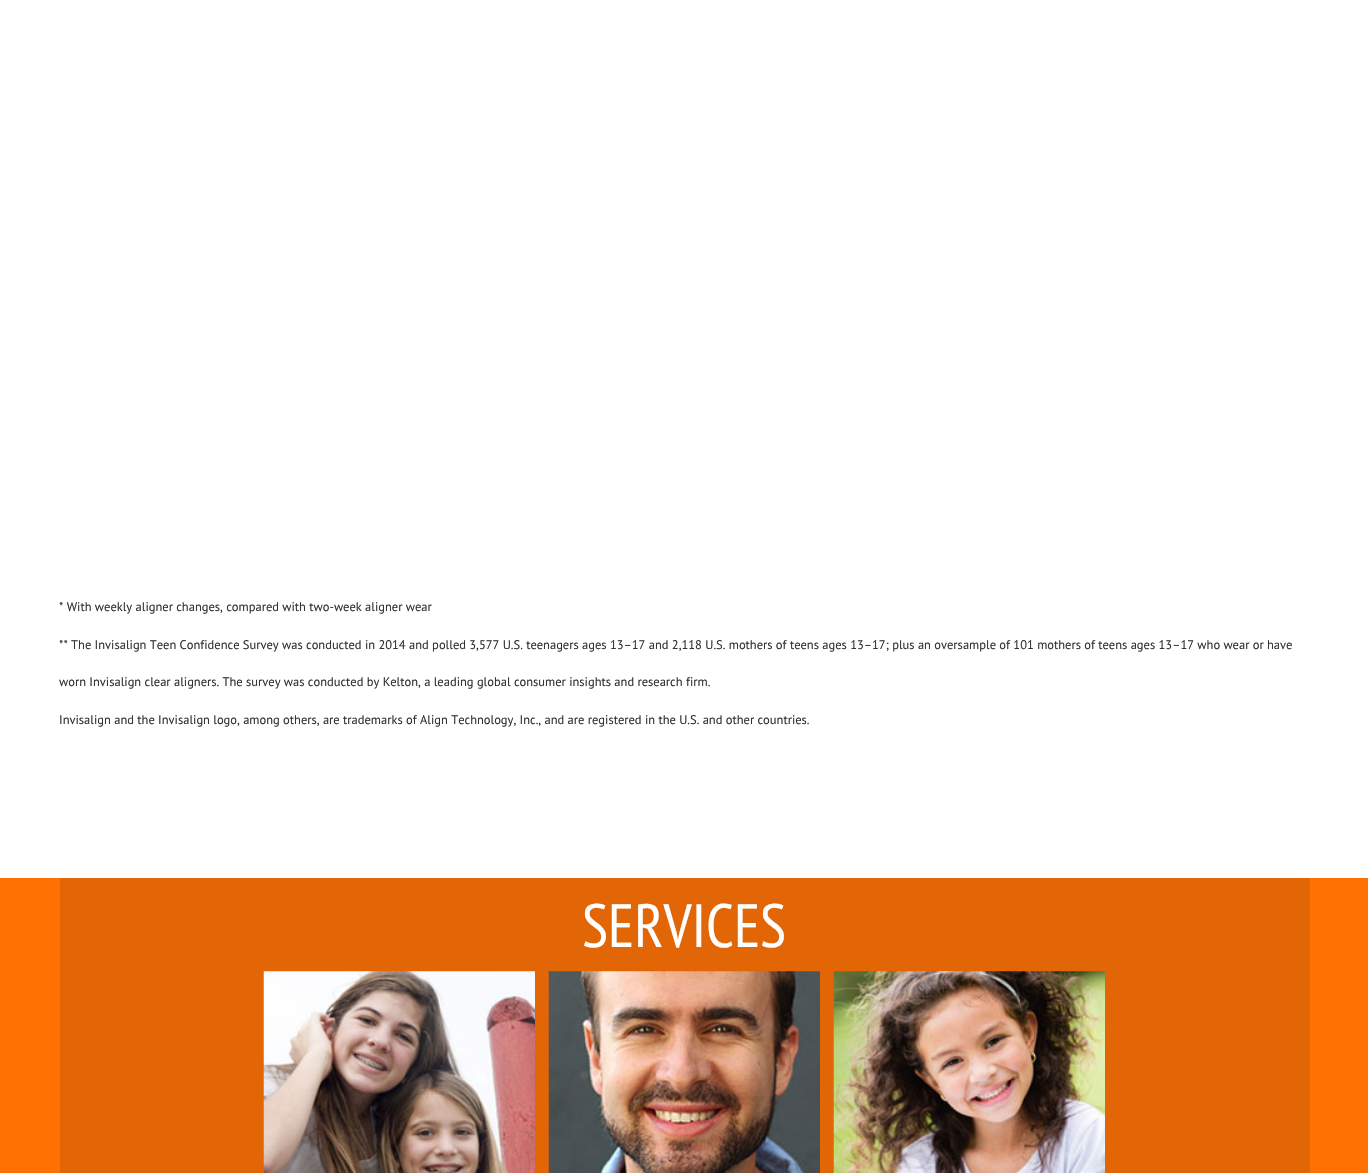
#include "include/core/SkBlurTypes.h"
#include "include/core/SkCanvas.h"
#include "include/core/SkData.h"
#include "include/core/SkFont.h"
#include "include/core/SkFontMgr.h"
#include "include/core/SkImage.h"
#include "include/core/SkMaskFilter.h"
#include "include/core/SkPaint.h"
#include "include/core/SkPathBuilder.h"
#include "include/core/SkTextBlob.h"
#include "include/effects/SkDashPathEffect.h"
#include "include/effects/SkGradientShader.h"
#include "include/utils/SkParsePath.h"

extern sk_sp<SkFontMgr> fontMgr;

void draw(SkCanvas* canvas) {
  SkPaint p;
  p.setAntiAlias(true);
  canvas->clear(SK_ColorWHITE);
  p.setColor(SkColorSetRGB(255, 113, 2));
  canvas->drawRect(SkRect::MakeLTRB(0, 878, 1368, 1173), p);
  p.setColor(SkColorSetRGB(226, 102, 6));
  canvas->drawRect(SkRect::MakeLTRB(60, 878, 1310, 1173), p);
  canvas->drawImageRect(SkImages::DeferredFromEncodedData(SkData::MakeFromFileName("images/1.png")), SkRect::MakeLTRB(263, 971, 535, 1173), SkSamplingOptions());
  canvas->drawImageRect(SkImages::DeferredFromEncodedData(SkData::MakeFromFileName("images/2.png")), SkRect::MakeLTRB(548, 971, 820, 1173), SkSamplingOptions());
  canvas->drawImageRect(SkImages::DeferredFromEncodedData(SkData::MakeFromFileName("images/3.png")), SkRect::MakeLTRB(833, 971, 1105, 1173), SkSamplingOptions());
  SkFont font1(fontMgr->matchFamilyStyle("PT Sans", SkFontStyle::Normal()), 12.5f);
  font1.setSubpixel(true);
  p.setColor(SkColorSetRGB(51, 51, 51));
  canvas->drawString("* With weekly aligner changes, compared with two-week aligner wear", 59, 611, font1, p);
  canvas->drawString("** The Invisalign Teen Confidence Survey was conducted in 2014 and polled 3,577 U.S. teenagers ages 13–17 and 2,118 U.S. mothers of teens ages 13–17; plus an oversample of 101 mothers of teens ages 13–17 who wear or have", 59, 649, font1, p);
  canvas->drawString("worn Invisalign clear aligners. The survey was conducted by Kelton, a leading global consumer insights and research firm.", 59, 686, font1, p);
  canvas->drawString("Invisalign and the Invisalign logo, among others, are trademarks of Align Technology, Inc., and are registered in the U.S. and other countries.", 59, 724, font1, p);
  SkFont font2(fontMgr->matchFamilyStyle("PT Sans Narrow", SkFontStyle::Normal()), 61);
  font2.setSubpixel(true);
  p.setColor(SK_ColorWHITE);
  canvas->drawString("SERVICES", 582, 947, font2, p);
}
